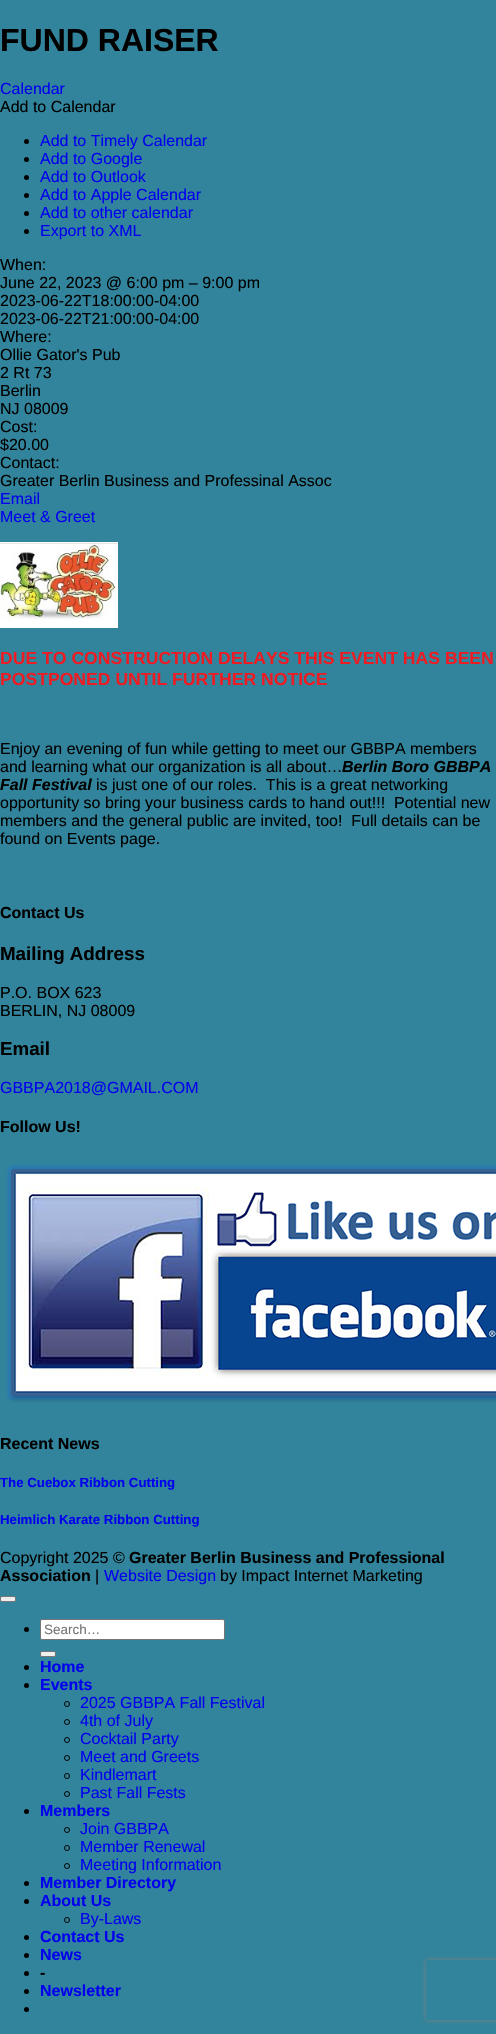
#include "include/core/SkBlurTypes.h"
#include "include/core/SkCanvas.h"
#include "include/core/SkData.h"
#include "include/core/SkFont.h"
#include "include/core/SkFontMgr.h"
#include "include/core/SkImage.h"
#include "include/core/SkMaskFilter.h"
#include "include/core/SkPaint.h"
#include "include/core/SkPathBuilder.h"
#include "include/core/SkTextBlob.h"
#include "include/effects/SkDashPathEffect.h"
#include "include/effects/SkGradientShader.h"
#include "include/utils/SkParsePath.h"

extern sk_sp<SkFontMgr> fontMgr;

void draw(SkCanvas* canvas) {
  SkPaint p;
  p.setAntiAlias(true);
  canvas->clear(SkColorSetRGB(49, 132, 155));
  p.setColor(SK_ColorBLACK);
  canvas->drawCircle(26.5f, 141.5f, 2.5f, p);
  canvas->drawCircle(26.5f, 159.5f, 2.5f, p);
  canvas->drawCircle(26.5f, 177.5f, 2.5f, p);
  canvas->drawCircle(26.5f, 195.5f, 2.5f, p);
  canvas->drawCircle(26.5f, 213.5f, 2.5f, p);
  canvas->drawCircle(26.5f, 231.5f, 2.5f, p);
  canvas->drawImageRect(SkImages::DeferredFromEncodedData(SkData::MakeFromFileName("images/1.png")), SkRect::MakeLTRB(0, 542, 118, 628), SkSamplingOptions());
  canvas->drawImageRect(SkImages::DeferredFromEncodedData(SkData::MakeFromFileName("images/2.png")), SkRect::MakeLTRB(6, 1164, 496, 1403), SkSamplingOptions());
  p.setColor(SkColorSetRGB(239, 239, 239));
  canvas->drawRoundRect(SkRect::MakeLTRB(0.5f, 1596.5f, 15.5f, 1601.5f), 1.5f, 1.5f, p);
  p.setStyle(SkPaint::kStroke_Style);
  p.setStrokeWidth(1);
  p.setColor(SkColorSetRGB(118, 118, 118));
  canvas->drawRoundRect(SkRect::MakeLTRB(0.5f, 1596.5f, 15.5f, 1601.5f), 1.5f, 1.5f, p);
  p.setStyle(SkPaint::kFill_Style);
  p.setColor(SK_ColorBLACK);
  canvas->drawCircle(26.5f, 1629.5f, 2.5f, p);
  p.setColor(SK_ColorWHITE);
  canvas->drawRoundRect(SkRect::MakeLTRB(40.5f, 1619.5f, 224.5f, 1639.5f), 1.5f, 1.5f, p);
  p.setStyle(SkPaint::kStroke_Style);
  p.setColor(SkColorSetRGB(118, 118, 118));
  canvas->drawRoundRect(SkRect::MakeLTRB(40.5f, 1619.5f, 224.5f, 1639.5f), 1.5f, 1.5f, p);
  p.setStyle(SkPaint::kFill_Style);
  p.setColor(SkColorSetRGB(239, 239, 239));
  canvas->drawRoundRect(SkRect::MakeLTRB(40.5f, 1651.5f, 55.5f, 1656.5f), 1.5f, 1.5f, p);
  p.setStyle(SkPaint::kStroke_Style);
  p.setColor(SkColorSetRGB(118, 118, 118));
  canvas->drawRoundRect(SkRect::MakeLTRB(40.5f, 1651.5f, 55.5f, 1656.5f), 1.5f, 1.5f, p);
  p.setStyle(SkPaint::kFill_Style);
  p.setColor(SK_ColorBLACK);
  canvas->drawCircle(26.5f, 1667.5f, 2.5f, p);
  canvas->drawCircle(26.5f, 1685.5f, 2.5f, p);
  p.setStyle(SkPaint::kStroke_Style);
  canvas->drawCircle(67, 1704, 2.5f, p);
  canvas->drawCircle(67, 1722, 2.5f, p);
  canvas->drawCircle(67, 1740, 2.5f, p);
  canvas->drawCircle(67, 1758, 2.5f, p);
  canvas->drawCircle(67, 1776, 2.5f, p);
  canvas->drawCircle(67, 1794, 2.5f, p);
  p.setStyle(SkPaint::kFill_Style);
  canvas->drawCircle(26.5f, 1811.5f, 2.5f, p);
  p.setStyle(SkPaint::kStroke_Style);
  canvas->drawCircle(67, 1830, 2.5f, p);
  canvas->drawCircle(67, 1848, 2.5f, p);
  canvas->drawCircle(67, 1866, 2.5f, p);
  p.setStyle(SkPaint::kFill_Style);
  canvas->drawCircle(26.5f, 1883.5f, 2.5f, p);
  canvas->drawCircle(26.5f, 1901.5f, 2.5f, p);
  p.setStyle(SkPaint::kStroke_Style);
  canvas->drawCircle(67, 1920, 2.5f, p);
  p.setStyle(SkPaint::kFill_Style);
  canvas->drawCircle(26.5f, 1937.5f, 2.5f, p);
  canvas->drawCircle(26.5f, 1955.5f, 2.5f, p);
  canvas->drawCircle(26.5f, 1973.5f, 2.5f, p);
  canvas->drawCircle(26.5f, 1991.5f, 2.5f, p);
  canvas->drawCircle(26.5f, 2009.5f, 2.5f, p);
  canvas->save();
  canvas->clipPath(SkPathBuilder(SkPathFillType::kEvenOdd).moveTo(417, 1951).lineTo(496, 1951).lineTo(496, 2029).lineTo(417, 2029).close().moveTo(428, 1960).lineTo(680, 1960).cubicTo(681, 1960, 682, 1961, 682, 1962).lineTo(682, 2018).cubicTo(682, 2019, 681, 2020, 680, 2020).lineTo(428, 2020).cubicTo(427, 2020, 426, 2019, 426, 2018).lineTo(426, 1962).cubicTo(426, 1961, 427, 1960, 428, 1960).close().detach(), true);
  p.setColor(SkColorSetRGB(128, 128, 128));
  p.setMaskFilter(SkMaskFilter::MakeBlur(kNormal_SkBlurStyle, 2.5f));
  canvas->drawRoundRect(SkRect::MakeLTRB(426, 1960, 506, 2020), 2, 2, p);
  p.setMaskFilter(nullptr);
  canvas->restore();
  SkFont font1(fontMgr->matchFamilyStyle("Liberation Sans", SkFontStyle::Bold()), 32);
  font1.setSubpixel(true);
  p.setColor(SK_ColorBLACK);
  canvas->drawString("FUND RAISER", 0, 51, font1, p);
  SkFont font2(fontMgr->matchFamilyStyle("Liberation Sans", SkFontStyle::Normal()), 16);
  font2.setSubpixel(true);
  p.setColor(SkColorSetRGB(0, 0, 238));
  canvas->drawString("Calendar", 0, 94, font2, p);
  p.setColor(SK_ColorBLACK);
  canvas->drawString("Add to Calendar", 0, 112, font2, p);
  p.setColor(SkColorSetRGB(0, 0, 238));
  canvas->drawString("Add to Timely Calendar", 40, 146, font2, p);
  canvas->drawString("Add to Google", 40, 164, font2, p);
  canvas->drawString("Add to Outlook", 40, 182, font2, p);
  canvas->drawString("Add to Apple Calendar", 40, 200, font2, p);
  canvas->drawString("Add to other calendar", 40, 218, font2, p);
  canvas->drawString("Export to XML", 40, 236, font2, p);
  p.setColor(SK_ColorBLACK);
  canvas->drawString("When:", 0, 270, font2, p);
  canvas->drawString("June 22, 2023 @ 6:00 pm – 9:00 pm", 0, 288, font2, p);
  canvas->drawString("2023-06-22T18:00:00-04:00", 0, 306, font2, p);
  canvas->drawString("2023-06-22T21:00:00-04:00", 0, 324, font2, p);
  canvas->drawString("Where:", 0, 342, font2, p);
  canvas->drawString("Ollie Gator's Pub", 0, 360, font2, p);
  canvas->drawString("2 Rt 73", 0, 378, font2, p);
  canvas->drawString("Berlin", 0, 396, font2, p);
  canvas->drawString("NJ 08009", 0, 414, font2, p);
  canvas->drawString("Cost:", 0, 432, font2, p);
  canvas->drawString("$20.00", 0, 450, font2, p);
  canvas->drawString("Contact:", 0, 468, font2, p);
  canvas->drawString("Greater Berlin Business and Professinal Assoc", 0, 486, font2, p);
  p.setColor(SkColorSetRGB(0, 0, 238));
  canvas->drawString("Email", 0, 504, font2, p);
  canvas->drawString("Meet & Greet", 0, 522, font2, p);
  SkFont font3(fontMgr->matchFamilyStyle("Liberation Sans", SkFontStyle::Bold()), 17.6f);
  font3.setSubpixel(true);
  p.setColor(SkColorSetRGB(237, 28, 36));
  canvas->drawString("DUE TO CONSTRUCTION DELAYS THIS EVENT HAS BEEN", 0, 664, font3, p);
  canvas->drawString("POSTPONED UNTIL FURTHER NOTICE", 0, 685, font3, p);
  p.setColor(SK_ColorBLACK);
  canvas->drawString("Enjoy an evening of fun while getting to meet our GBBPA members", 0, 754, font2, p);
  canvas->drawString("and learning what our organization is all about…", 0, 772, font2, p);
  SkFont font4(fontMgr->matchFamilyStyle("Liberation Sans", SkFontStyle::BoldItalic()), 16);
  font4.setSubpixel(true);
  canvas->drawString("Berlin Boro GBBPA", 342, 772, font4, p);
  canvas->drawString("Fall Festival", 0, 790, font4, p);
  canvas->drawString("is just one of our roles.  This is a great networking", 96, 790, font2, p);
  canvas->drawString("opportunity so bring your business cards to hand out!!!  Potential new", 0, 808, font2, p);
  canvas->drawString("members and the general public are invited, too!  Full details can be", 0, 826, font2, p);
  canvas->drawString("found on Events page.", 0, 844, font2, p);
  SkFont font5(fontMgr->matchFamilyStyle("Liberation Sans", SkFontStyle::Bold()), 16);
  font5.setSubpixel(true);
  canvas->drawString("Contact Us", 0, 918, font5, p);
  SkFont font6(fontMgr->matchFamilyStyle("Liberation Sans", SkFontStyle::Bold()), 18.75f);
  font6.setSubpixel(true);
  canvas->drawString("Mailing Address", 0, 960, font6, p);
  canvas->drawString("P.O. BOX 623", 0, 998, font2, p);
  canvas->drawString("BERLIN, NJ 08009", 0, 1016, font2, p);
  canvas->drawString("Email", 0, 1055, font6, p);
  p.setColor(SkColorSetRGB(0, 0, 238));
  canvas->drawString("GBBPA2018@GMAIL.COM", 0, 1093, font2, p);
  p.setColor(SK_ColorBLACK);
  canvas->drawString("Follow Us!", 0, 1132, font5, p);
  canvas->drawString("Recent News", 0, 1449, font5, p);
  SkFont font7(fontMgr->matchFamilyStyle("Liberation Sans", SkFontStyle::Bold()), 13.25f);
  font7.setSubpixel(true);
  p.setColor(SkColorSetRGB(0, 0, 238));
  canvas->drawString("The Cuebox Ribbon Cutting", 0, 1487, font7, p);
  canvas->drawString("Heimlich Karate Ribbon Cutting", 0, 1524, font7, p);
  p.setColor(SK_ColorBLACK);
  canvas->drawString("Copyright 2025 ©", 0, 1563, font2, p);
  canvas->drawString("Greater Berlin Business and Professional", 129, 1563, font5, p);
  canvas->drawString("Association", 0, 1581, font5, p);
  canvas->drawString("|", 95, 1581, font2, p);
  p.setColor(SkColorSetRGB(0, 0, 238));
  canvas->drawString("Website Design", 104, 1581, font2, p);
  p.setColor(SK_ColorBLACK);
  canvas->drawString("by Impact Internet Marketing", 220, 1581, font2, p);
  SkFont font8(fontMgr->matchFamilyStyle("Liberation Sans", SkFontStyle::Normal()), 13.5f);
  font8.setSubpixel(true);
  p.setColor(SkColorSetRGB(117, 117, 117));
  canvas->drawString("Search…", 44, 1634, font8, p);
  p.setColor(SkColorSetRGB(0, 0, 238));
  canvas->drawString("Home", 40, 1672, font5, p);
  canvas->drawString("Events", 40, 1690, font5, p);
  canvas->drawString("2025 GBBPA Fall Festival", 80, 1708, font2, p);
  canvas->drawString("4th of July", 80, 1726, font2, p);
  canvas->drawString("Cocktail Party", 80, 1744, font2, p);
  canvas->drawString("Meet and Greets", 80, 1762, font2, p);
  canvas->drawString("Kindlemart", 80, 1780, font2, p);
  canvas->drawString("Past Fall Fests", 80, 1798, font2, p);
  canvas->drawString("Members", 40, 1816, font5, p);
  canvas->drawString("Join GBBPA", 80, 1834, font2, p);
  canvas->drawString("Member Renewal", 80, 1852, font2, p);
  canvas->drawString("Meeting Information", 80, 1870, font2, p);
  canvas->drawString("Member Directory", 40, 1888, font5, p);
  canvas->drawString("About Us", 40, 1906, font5, p);
  canvas->drawString("By-Laws", 80, 1924, font2, p);
  canvas->drawString("Contact Us", 40, 1942, font5, p);
  canvas->drawString("News", 40, 1960, font5, p);
  p.setColor(SK_ColorBLACK);
  canvas->drawString("-", 40, 1978, font5, p);
  p.setColor(SkColorSetRGB(0, 0, 238));
  canvas->drawString("Newsletter", 40, 1996, font5, p);
}
